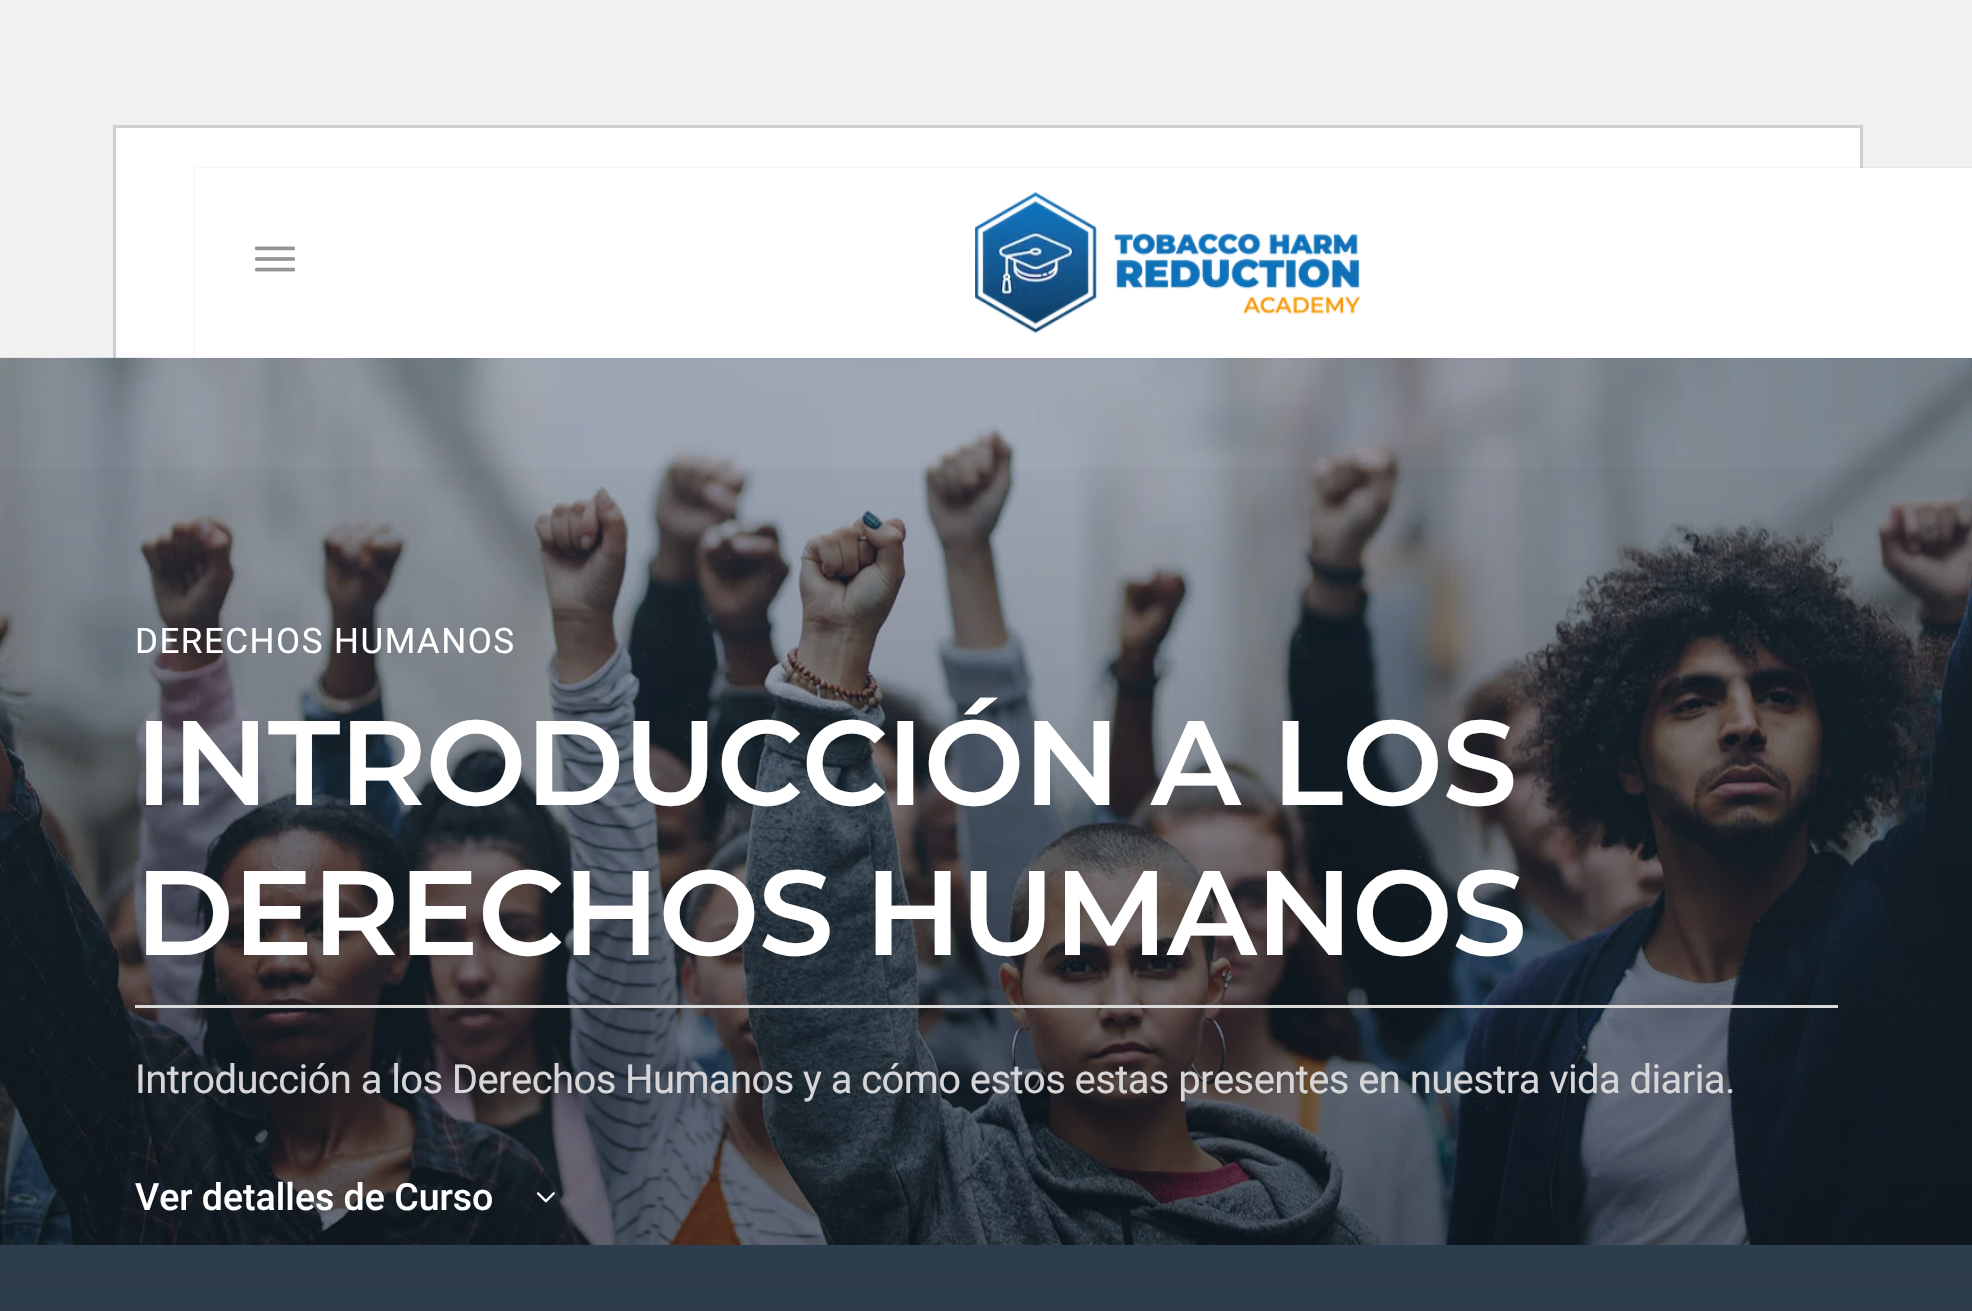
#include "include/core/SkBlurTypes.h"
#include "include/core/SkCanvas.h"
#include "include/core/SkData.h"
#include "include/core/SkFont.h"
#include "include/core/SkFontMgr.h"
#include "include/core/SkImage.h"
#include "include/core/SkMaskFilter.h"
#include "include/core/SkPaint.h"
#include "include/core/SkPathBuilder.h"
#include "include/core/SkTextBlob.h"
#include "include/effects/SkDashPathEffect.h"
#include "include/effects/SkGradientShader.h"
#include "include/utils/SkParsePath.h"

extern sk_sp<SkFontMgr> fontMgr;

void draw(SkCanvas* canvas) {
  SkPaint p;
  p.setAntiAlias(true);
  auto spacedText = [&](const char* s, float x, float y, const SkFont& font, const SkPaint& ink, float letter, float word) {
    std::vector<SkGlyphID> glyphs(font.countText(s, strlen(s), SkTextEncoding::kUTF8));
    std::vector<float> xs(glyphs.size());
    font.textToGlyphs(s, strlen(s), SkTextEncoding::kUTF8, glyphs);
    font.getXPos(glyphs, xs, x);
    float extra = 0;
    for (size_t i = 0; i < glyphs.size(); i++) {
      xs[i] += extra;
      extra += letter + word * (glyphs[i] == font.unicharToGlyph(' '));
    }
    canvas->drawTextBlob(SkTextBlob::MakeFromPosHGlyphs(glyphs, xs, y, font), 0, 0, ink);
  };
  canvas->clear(SkColorSetRGB(241, 241, 241));
  p.setColor(SK_ColorWHITE);
  canvas->drawRect(SkRect::MakeLTRB(116, 128, 1860, 358), p);
  p.setStyle(SkPaint::kStroke_Style);
  p.setStrokeWidth(3);
  p.setColor(SkColorSetRGB(204, 208, 212));
  canvas->drawRect(SkRect::MakeLTRB(114.5f, 126.5f, 1861.5f, 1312.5f), p);
  canvas->drawImageRect(SkImages::DeferredFromEncodedData(SkData::MakeFromFileName("images/3.png")), SkRect::MakeLTRB(0, 357, 1972, 1245), SkSamplingOptions());
  p.setStyle(SkPaint::kFill_Style);
  p.setColor(SkColorSetRGB(96, 115, 135));
  canvas->drawRect(SkRect::MakeLTRB(0, 1245, 1972, 1311), p);
  p.setColor(SkColorSetARGB(102, 18, 43, 70));
  canvas->drawRect(SkRect::MakeLTRB(0, 358, 1972, 1311), p);
  p.setColor(SkColorSetARGB(38, 65, 71, 108));
  p.setMaskFilter(SkMaskFilter::MakeBlur(kNormal_SkBlurStyle, 1));
  canvas->drawRect(SkRect::MakeLTRB(195, 168, 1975, 358), p);
  p.setMaskFilter(nullptr);
  p.setColor(SK_ColorWHITE);
  canvas->drawRect(SkRect::MakeLTRB(195, 168, 1972, 358), p);
  canvas->drawImageRect(SkImages::DeferredFromEncodedData(SkData::MakeFromFileName("images/1.png")), SkRect::MakeLTRB(255, 246, 295, 272), SkSamplingOptions());
  canvas->drawImageRect(SkImages::DeferredFromEncodedData(SkData::MakeFromFileName("images/2.png")), SkRect::MakeLTRB(975, 192, 1360, 334), SkSamplingOptions());
  {
    const SkColor colors[] = {SkColorSetARGB(0, 0, 0, 0), SkColorSetARGB(102, 0, 0, 0)};
    const float stops[] = {0.04f, 1};
    const SkPoint ends[] = {{986, 357}, {986, 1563}};
    p.setShader(SkGradientShader::MakeLinear(ends, colors, stops, 2, SkTileMode::kClamp));
    p.setAlpha(255);
  }
  canvas->drawRect(SkRect::MakeLTRB(0, 468, 1972, 1311), p);
  p.setShader(nullptr);
  p.setColor(SkColorSetRGB(218, 218, 218));
  canvas->drawRect(SkRect::MakeLTRB(135, 1005, 1838, 1008), p);
  canvas->drawImageRect(SkImages::DeferredFromEncodedData(SkData::MakeFromFileName("images/4.png")), SkRect::MakeLTRB(536, 1192, 555, 1203), SkSamplingOptions());
  SkFont font1(fontMgr->matchFamilyStyle("Roboto", SkFontStyle::Normal()), 35);
  font1.setSubpixel(true);
  p.setColor(SK_ColorWHITE);
  spacedText("DERECHOS HUMANOS", 135, 653, font1, p, 1.5f, 0);
  SkFont font2(fontMgr->matchFamilyStyle("Montserrat", SkFontStyle(600, SkFontStyle::kNormal_Width, SkFontStyle::kUpright_Slant)), 120);
  font2.setSubpixel(true);
  spacedText("INTRODUCCIÓN A LOS", 135, 805, font2, p, -1.25f, 0);
  spacedText("DERECHOS HUMANOS", 135, 955, font2, p, -1.25f, 0);
  SkFont font3(fontMgr->matchFamilyStyle("Roboto", SkFontStyle::Normal()), 40);
  font3.setSubpixel(true);
  p.setColor(SkColorSetRGB(214, 214, 216));
  spacedText("Introducción a los Derechos Humanos y a cómo estos estas presentes en nuestra vida diaria.", 135, 1093, font3, p, -0.6f, 0);
  SkFont font4(fontMgr->matchFamilyStyle("Roboto", SkFontStyle(500, SkFontStyle::kNormal_Width, SkFontStyle::kUpright_Slant)), 37.5f);
  font4.setSubpixel(true);
  p.setColor(SK_ColorWHITE);
  canvas->drawString("Ver detalles de Curso", 135, 1210, font4, p);
}
